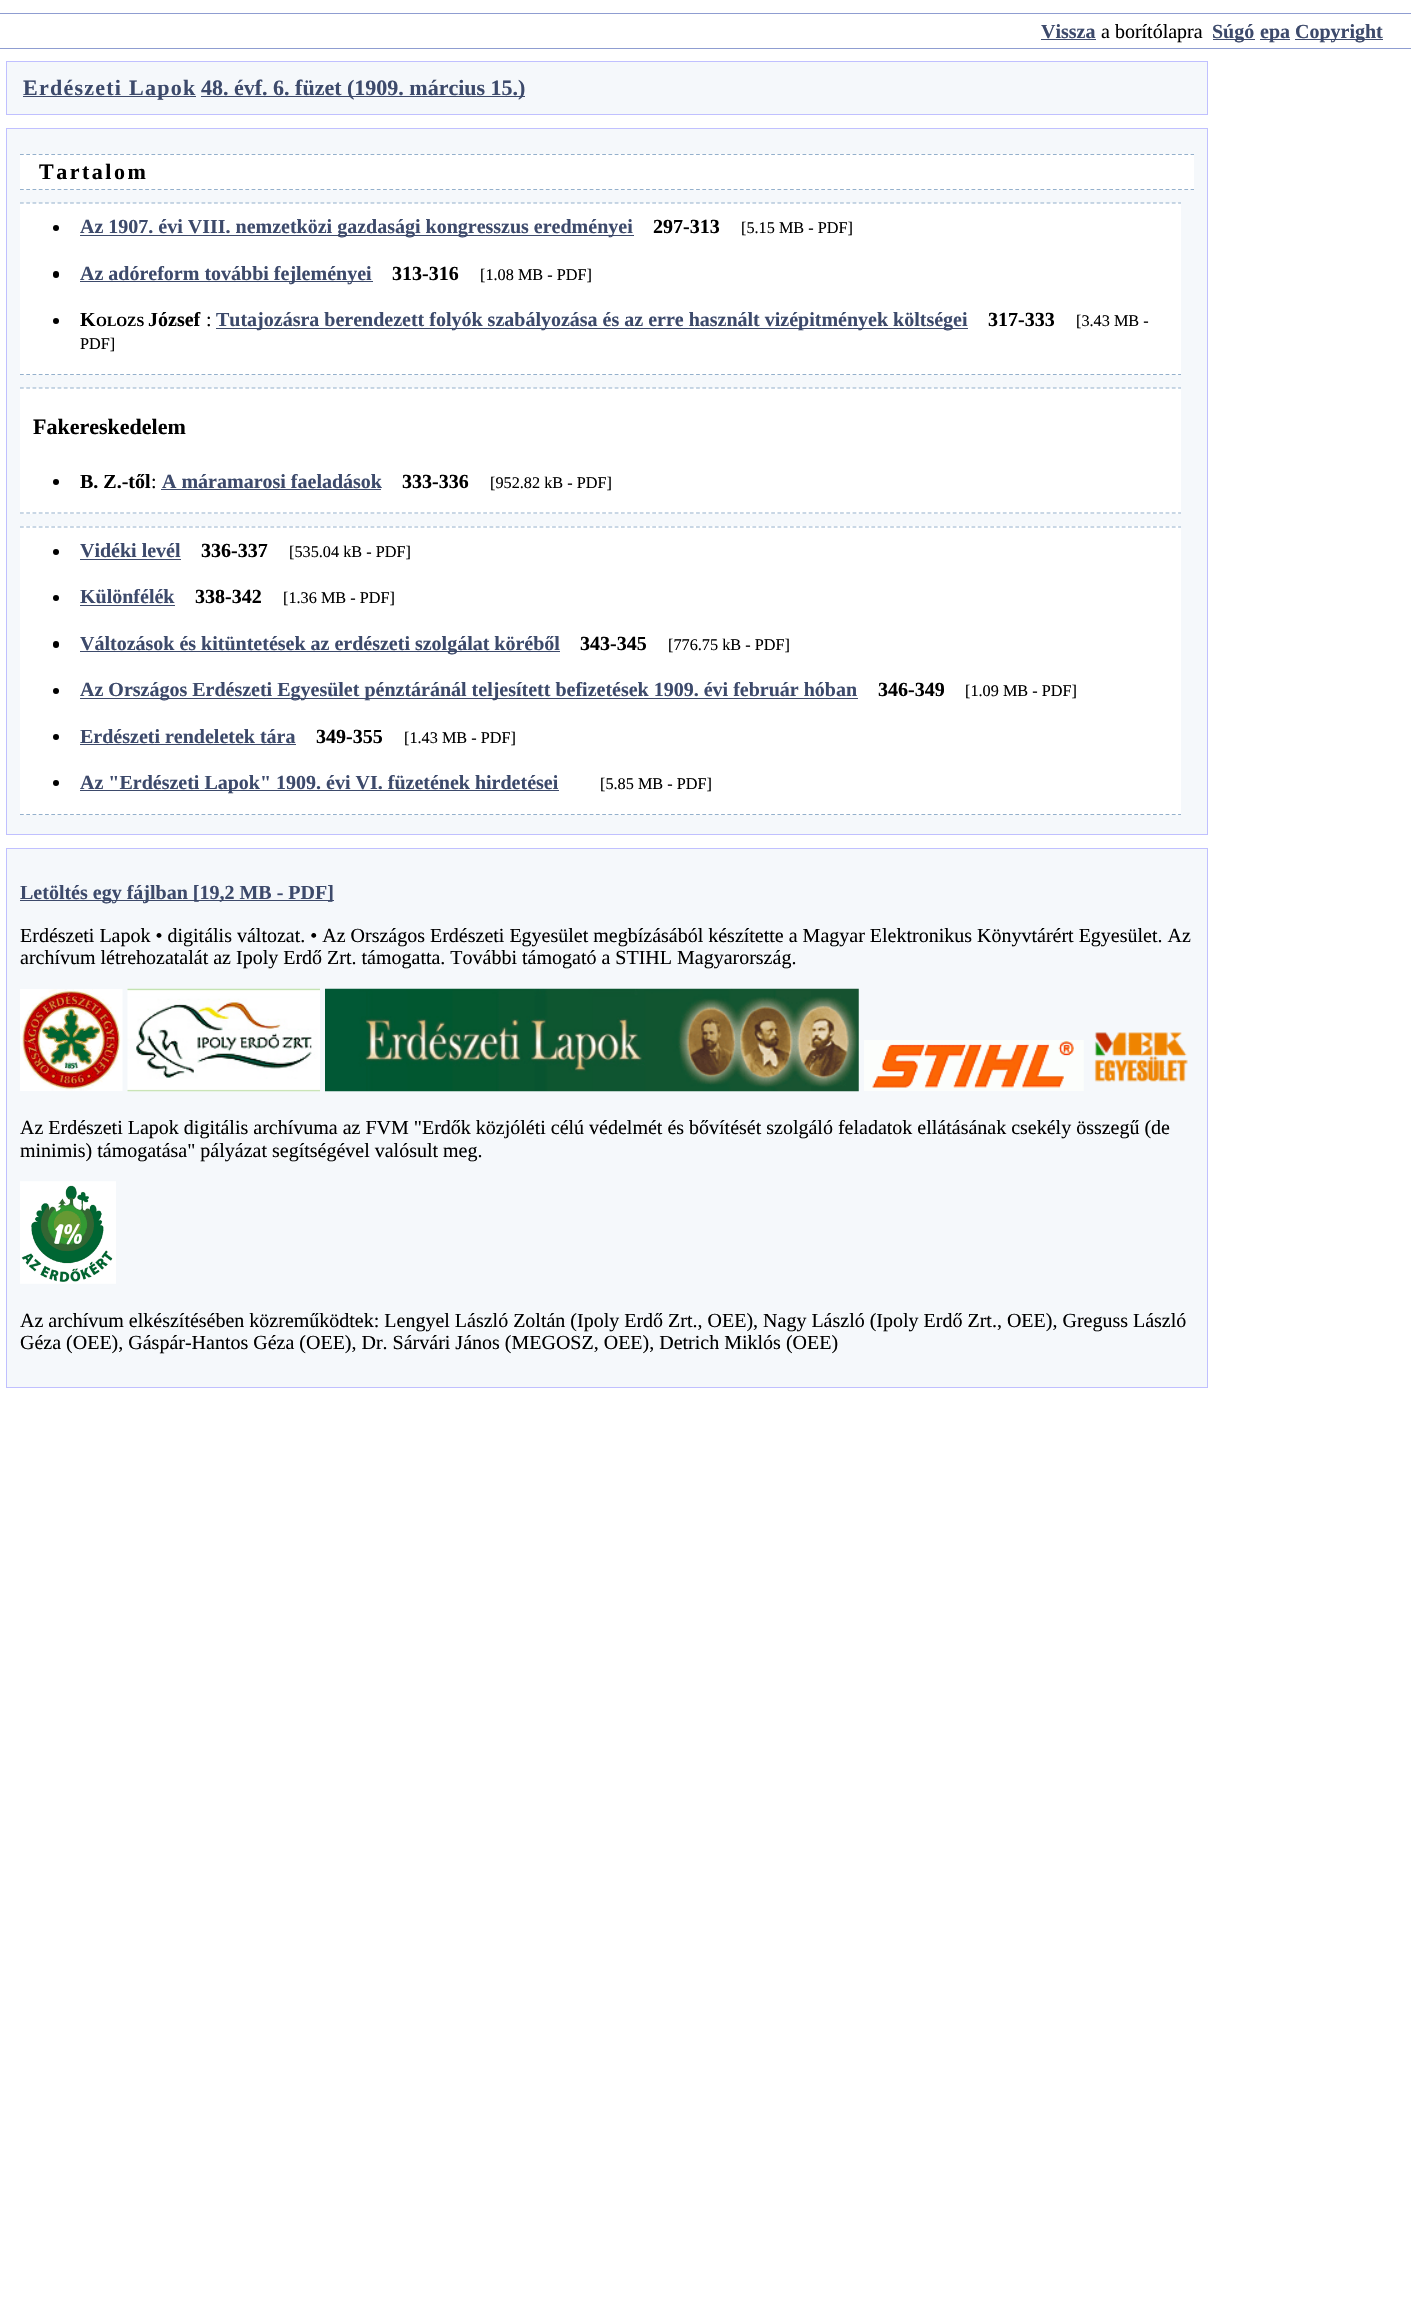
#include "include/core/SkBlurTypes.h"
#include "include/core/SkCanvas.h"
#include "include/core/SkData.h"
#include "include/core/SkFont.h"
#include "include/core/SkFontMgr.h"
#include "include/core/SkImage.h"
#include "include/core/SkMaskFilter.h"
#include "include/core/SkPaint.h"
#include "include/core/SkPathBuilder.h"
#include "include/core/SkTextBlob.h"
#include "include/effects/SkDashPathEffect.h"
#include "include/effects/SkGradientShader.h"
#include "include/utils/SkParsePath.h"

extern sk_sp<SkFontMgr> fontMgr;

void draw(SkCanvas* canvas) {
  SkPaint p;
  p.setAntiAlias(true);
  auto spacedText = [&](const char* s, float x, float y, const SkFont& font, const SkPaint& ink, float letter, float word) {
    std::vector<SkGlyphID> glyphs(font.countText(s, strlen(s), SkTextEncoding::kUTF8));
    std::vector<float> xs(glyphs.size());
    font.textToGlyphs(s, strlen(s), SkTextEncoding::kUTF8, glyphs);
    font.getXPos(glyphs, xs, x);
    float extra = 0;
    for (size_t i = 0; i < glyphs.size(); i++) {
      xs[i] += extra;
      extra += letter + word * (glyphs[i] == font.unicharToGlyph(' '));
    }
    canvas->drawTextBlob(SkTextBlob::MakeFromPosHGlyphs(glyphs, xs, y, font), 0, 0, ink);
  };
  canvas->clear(SK_ColorWHITE);
  p.setColor(SkColorSetRGB(143, 157, 209));
  canvas->drawRect(SkRect::MakeLTRB(0, 13, 1411, 14), p);
  canvas->drawRect(SkRect::MakeLTRB(0, 48, 1411, 49), p);
  p.setColor(SkColorSetRGB(61, 74, 107));
  canvas->drawRect(SkRect::MakeLTRB(1041, 39, 1096, 40), p);
  canvas->drawRect(SkRect::MakeLTRB(1213, 39, 1255, 40), p);
  canvas->drawRect(SkRect::MakeLTRB(1260, 39, 1290, 40), p);
  canvas->drawRect(SkRect::MakeLTRB(1295, 39, 1383, 40), p);
  p.setColor(SkColorSetRGB(245, 248, 251));
  canvas->drawRect(SkRect::MakeLTRB(6.5f, 61.5f, 1207.5f, 114.5f), p);
  p.setStyle(SkPaint::kStroke_Style);
  p.setStrokeWidth(1);
  p.setColor(SkColorSetRGB(192, 192, 255));
  canvas->drawRect(SkRect::MakeLTRB(6.5f, 61.5f, 1207.5f, 114.5f), p);
  p.setStyle(SkPaint::kFill_Style);
  p.setColor(SkColorSetRGB(61, 74, 107));
  canvas->drawRect(SkRect::MakeLTRB(23, 96, 196, 97), p);
  canvas->drawRect(SkRect::MakeLTRB(201, 96, 525, 97), p);
  p.setColor(SkColorSetRGB(245, 248, 251));
  canvas->drawRect(SkRect::MakeLTRB(6.5f, 128.5f, 1207.5f, 834.5f), p);
  p.setStyle(SkPaint::kStroke_Style);
  p.setColor(SkColorSetRGB(192, 192, 255));
  canvas->drawRect(SkRect::MakeLTRB(6.5f, 128.5f, 1207.5f, 834.5f), p);
  p.setStyle(SkPaint::kFill_Style);
  p.setColor(SK_ColorWHITE);
  canvas->drawRect(SkRect::MakeLTRB(20, 154, 1194, 190), p);
  p.setStyle(SkPaint::kStroke_Style);
  p.setStrokeWidth(1.2f);
  p.setColor(SkColorSetRGB(148, 176, 204));
  p.setPathEffect(SkDashPathEffect::Make({{3.75f, 2.51f}}, 0));
  canvas->drawPath(SkPathBuilder().moveTo(20, 154.5f).lineTo(1194, 154.5f).detach(), p);
  p.setPathEffect(nullptr);
  p.setPathEffect(SkDashPathEffect::Make({{3.75f, 2.51f}}, 0));
  canvas->drawPath(SkPathBuilder().moveTo(20, 189.5f).lineTo(1194, 189.5f).detach(), p);
  p.setPathEffect(nullptr);
  p.setStyle(SkPaint::kFill_Style);
  p.setColor(SK_ColorWHITE);
  canvas->drawRect(SkRect::MakeLTRB(20, 203, 1181, 375), p);
  p.setStyle(SkPaint::kStroke_Style);
  p.setColor(SkColorSetRGB(148, 176, 204));
  p.setPathEffect(SkDashPathEffect::Make({{3.75f, 2.51f}}, 0));
  canvas->drawPath(SkPathBuilder().moveTo(20, 203).lineTo(1181, 203).detach(), p);
  p.setPathEffect(nullptr);
  p.setPathEffect(SkDashPathEffect::Make({{3.75f, 2.51f}}, 0));
  canvas->drawPath(SkPathBuilder().moveTo(20, 374.5f).lineTo(1181, 374.5f).detach(), p);
  p.setPathEffect(nullptr);
  p.setStyle(SkPaint::kFill_Style);
  p.setColor(SK_ColorBLACK);
  canvas->drawCircle(56, 228, 3, p);
  p.setColor(SkColorSetRGB(61, 74, 107));
  canvas->drawRect(SkRect::MakeLTRB(80, 235, 634, 236), p);
  p.setColor(SK_ColorBLACK);
  canvas->drawRoundRect(SkRect::MakeLTRB(53, 271, 59, 278), 3, 3, p);
  p.setColor(SkColorSetRGB(61, 74, 107));
  canvas->drawRect(SkRect::MakeLTRB(80, 281, 373, 282), p);
  p.setColor(SK_ColorBLACK);
  canvas->drawCircle(56, 321, 3, p);
  p.setColor(SkColorSetRGB(61, 74, 107));
  canvas->drawRect(SkRect::MakeLTRB(216, 328, 968, 329), p);
  p.setColor(SK_ColorWHITE);
  canvas->drawRect(SkRect::MakeLTRB(20, 388, 1181, 514), p);
  p.setStyle(SkPaint::kStroke_Style);
  p.setColor(SkColorSetRGB(148, 176, 204));
  p.setPathEffect(SkDashPathEffect::Make({{3.75f, 2.51f}}, 0));
  canvas->drawPath(SkPathBuilder().moveTo(20, 388).lineTo(1181, 388).detach(), p);
  p.setPathEffect(nullptr);
  p.setPathEffect(SkDashPathEffect::Make({{3.75f, 2.51f}}, 0));
  canvas->drawPath(SkPathBuilder().moveTo(20, 513).lineTo(1181, 513).detach(), p);
  p.setPathEffect(nullptr);
  p.setStyle(SkPaint::kFill_Style);
  p.setColor(SK_ColorBLACK);
  canvas->drawCircle(56, 482, 3, p);
  p.setColor(SkColorSetRGB(61, 74, 107));
  canvas->drawRect(SkRect::MakeLTRB(161, 489, 381, 490), p);
  p.setColor(SK_ColorWHITE);
  canvas->drawRect(SkRect::MakeLTRB(20, 526, 1181, 815), p);
  p.setStyle(SkPaint::kStroke_Style);
  p.setColor(SkColorSetRGB(148, 176, 204));
  p.setPathEffect(SkDashPathEffect::Make({{3.75f, 2.51f}}, 0));
  canvas->drawPath(SkPathBuilder().moveTo(20, 527).lineTo(1181, 527).detach(), p);
  p.setPathEffect(nullptr);
  p.setPathEffect(SkDashPathEffect::Make({{3.75f, 2.51f}}, 0));
  canvas->drawPath(SkPathBuilder().moveTo(20, 814.5f).lineTo(1181, 814.5f).detach(), p);
  p.setPathEffect(nullptr);
  p.setStyle(SkPaint::kFill_Style);
  p.setColor(SK_ColorBLACK);
  canvas->drawCircle(56, 552, 3, p);
  p.setColor(SkColorSetRGB(61, 74, 107));
  canvas->drawRect(SkRect::MakeLTRB(80, 559, 181, 560), p);
  p.setColor(SK_ColorBLACK);
  canvas->drawCircle(56, 598, 3, p);
  p.setColor(SkColorSetRGB(61, 74, 107));
  canvas->drawRect(SkRect::MakeLTRB(80, 605, 175, 606), p);
  p.setColor(SK_ColorBLACK);
  canvas->drawRoundRect(SkRect::MakeLTRB(53, 641, 59, 648), 3, 3, p);
  p.setColor(SkColorSetRGB(61, 74, 107));
  canvas->drawRect(SkRect::MakeLTRB(80, 651, 560, 652), p);
  p.setColor(SK_ColorBLACK);
  canvas->drawCircle(56, 691, 3, p);
  p.setColor(SkColorSetRGB(61, 74, 107));
  canvas->drawRect(SkRect::MakeLTRB(80, 698, 858, 699), p);
  p.setColor(SK_ColorBLACK);
  canvas->drawCircle(56, 737, 3, p);
  p.setColor(SkColorSetRGB(61, 74, 107));
  canvas->drawRect(SkRect::MakeLTRB(80, 744, 296, 745), p);
  p.setColor(SK_ColorBLACK);
  canvas->drawCircle(56, 783, 3, p);
  p.setColor(SkColorSetRGB(61, 74, 107));
  canvas->drawRect(SkRect::MakeLTRB(80, 790, 559, 791), p);
  p.setColor(SkColorSetRGB(245, 248, 251));
  canvas->drawRect(SkRect::MakeLTRB(6.5f, 848.5f, 1207.5f, 1387.5f), p);
  p.setStyle(SkPaint::kStroke_Style);
  p.setStrokeWidth(1);
  p.setColor(SkColorSetRGB(192, 192, 255));
  canvas->drawRect(SkRect::MakeLTRB(6.5f, 848.5f, 1207.5f, 1387.5f), p);
  p.setStyle(SkPaint::kFill_Style);
  p.setColor(SkColorSetRGB(61, 74, 107));
  canvas->drawRect(SkRect::MakeLTRB(20, 900, 334, 901), p);
  canvas->drawImageRect(SkImages::DeferredFromEncodedData(SkData::MakeFromFileName("images/1.png")), SkRect::MakeLTRB(20, 989, 123, 1091), SkSamplingOptions());
  canvas->drawImageRect(SkImages::DeferredFromEncodedData(SkData::MakeFromFileName("images/2.png")), SkRect::MakeLTRB(127, 988, 320, 1092), SkSamplingOptions());
  canvas->drawImageRect(SkImages::DeferredFromEncodedData(SkData::MakeFromFileName("images/3.png")), SkRect::MakeLTRB(325, 988, 859, 1092), SkSamplingOptions());
  canvas->drawImageRect(SkImages::DeferredFromEncodedData(SkData::MakeFromFileName("images/4.png")), SkRect::MakeLTRB(864, 1040, 1084, 1091), SkSamplingOptions());
  canvas->drawImageRect(SkImages::DeferredFromEncodedData(SkData::MakeFromFileName("images/5.png")), SkRect::MakeLTRB(1094, 1032, 1188, 1082), SkSamplingOptions());
  canvas->drawImageRect(SkImages::DeferredFromEncodedData(SkData::MakeFromFileName("images/6.png")), SkRect::MakeLTRB(20, 1181, 116, 1284), SkSamplingOptions());
  SkFont font1(fontMgr->matchFamilyStyle("Liberation Serif", SkFontStyle::Bold()), 20);
  font1.setSubpixel(true);
  canvas->drawString("Vissza", 1041, 38, font1, p);
  SkFont font2(fontMgr->matchFamilyStyle("Liberation Serif", SkFontStyle::Normal()), 20);
  font2.setSubpixel(true);
  p.setColor(SK_ColorBLACK);
  canvas->drawString("a borítólapra", 1101, 38, font2, p);
  p.setColor(SkColorSetRGB(61, 74, 107));
  canvas->drawString("Súgó", 1212, 38, font1, p);
  canvas->drawString("epa", 1260, 38, font1, p);
  canvas->drawString("Copyright", 1295, 38, font1, p);
  SkFont font3(fontMgr->matchFamilyStyle("Liberation Serif", SkFontStyle::Bold()), 22);
  font3.setSubpixel(true);
  spacedText("Erdészeti Lapok", 23, 95, font3, p, 1.25f, 0);
  canvas->drawString("48. évf. 6. füzet (1909. március 15.)", 201, 95, font3, p);
  p.setColor(SK_ColorBLACK);
  spacedText("Tartalom", 39, 179, font3, p, 2.5f, 0);
  p.setColor(SkColorSetRGB(61, 74, 107));
  canvas->drawString("Az 1907. évi VIII. nemzetközi gazdasági kongresszus eredményei", 80, 233, font1, p);
  p.setColor(SK_ColorBLACK);
  canvas->drawString("297-313", 653, 233, font1, p);
  SkFont font4(fontMgr->matchFamilyStyle("Liberation Serif", SkFontStyle::Normal()), 16.25f);
  font4.setSubpixel(true);
  canvas->drawString("[5.15 MB - PDF]", 741, 233, font4, p);
  p.setColor(SkColorSetRGB(61, 74, 107));
  canvas->drawString("Az adóreform további fejleményei", 80, 280, font1, p);
  p.setColor(SK_ColorBLACK);
  canvas->drawString("313-316", 392, 280, font1, p);
  canvas->drawString("[1.08 MB - PDF]", 480, 280, font4, p);
  canvas->drawString("K", 80, 326, font1, p);
  SkFont font5(fontMgr->matchFamilyStyle("Liberation Serif", SkFontStyle::Bold()), 14);
  font5.setSubpixel(true);
  canvas->drawString("OLOZS", 96, 326, font5, p);
  canvas->drawString("József", 148, 326, font1, p);
  canvas->drawString(":", 206, 326, font2, p);
  p.setColor(SkColorSetRGB(61, 74, 107));
  canvas->drawString("Tutajozásra berendezett folyók szabályozása és az erre használt vizépitmények költségei", 216, 326, font1, p);
  p.setColor(SK_ColorBLACK);
  canvas->drawString("317-333", 988, 326, font1, p);
  canvas->drawString("[3.43 MB -", 1076, 326, font4, p);
  canvas->drawString("PDF]", 80, 349, font4, p);
  canvas->drawString("Fakereskedelem", 33, 434, font3, p);
  canvas->drawString("B. Z.-től", 80, 488, font1, p);
  canvas->drawString(":", 151, 488, font2, p);
  p.setColor(SkColorSetRGB(61, 74, 107));
  canvas->drawString("A máramarosi faeladások", 162, 488, font1, p);
  p.setColor(SK_ColorBLACK);
  canvas->drawString("333-336", 402, 488, font1, p);
  canvas->drawString("[952.82 kB - PDF]", 490, 488, font4, p);
  p.setColor(SkColorSetRGB(61, 74, 107));
  canvas->drawString("Vidéki levél", 80, 557, font1, p);
  p.setColor(SK_ColorBLACK);
  canvas->drawString("336-337", 201, 557, font1, p);
  canvas->drawString("[535.04 kB - PDF]", 289, 557, font4, p);
  p.setColor(SkColorSetRGB(61, 74, 107));
  canvas->drawString("Különfélék", 80, 603, font1, p);
  p.setColor(SK_ColorBLACK);
  canvas->drawString("338-342", 195, 603, font1, p);
  canvas->drawString("[1.36 MB - PDF]", 283, 603, font4, p);
  p.setColor(SkColorSetRGB(61, 74, 107));
  canvas->drawString("Változások és kitüntetések az erdészeti szolgálat köréből", 80, 650, font1, p);
  p.setColor(SK_ColorBLACK);
  canvas->drawString("343-345", 580, 650, font1, p);
  canvas->drawString("[776.75 kB - PDF]", 668, 650, font4, p);
  p.setColor(SkColorSetRGB(61, 74, 107));
  canvas->drawString("Az Országos Erdészeti Egyesület pénztáránál teljesített befizetések 1909. évi február hóban", 80, 696, font1, p);
  p.setColor(SK_ColorBLACK);
  canvas->drawString("346-349", 878, 696, font1, p);
  canvas->drawString("[1.09 MB - PDF]", 965, 696, font4, p);
  p.setColor(SkColorSetRGB(61, 74, 107));
  canvas->drawString("Erdészeti rendeletek tára", 80, 743, font1, p);
  p.setColor(SK_ColorBLACK);
  canvas->drawString("349-355", 316, 743, font1, p);
  canvas->drawString("[1.43 MB - PDF]", 404, 743, font4, p);
  p.setColor(SkColorSetRGB(61, 74, 107));
  canvas->drawString("Az \"Erdészeti Lapok\" 1909. évi VI. füzetének hirdetései", 80, 789, font1, p);
  p.setColor(SK_ColorBLACK);
  canvas->drawString("[5.85 MB - PDF]", 600, 789, font4, p);
  p.setColor(SkColorSetRGB(61, 74, 107));
  canvas->drawString("Letöltés egy fájlban [19,2 MB - PDF]", 20, 899, font1, p);
  p.setColor(SK_ColorBLACK);
  canvas->drawString("Erdészeti Lapok • digitális változat. • Az Országos Erdészeti Egyesület megbízásából készítette a Magyar Elektronikus Könyvtárért Egyesület. Az", 20, 942, font2, p);
  canvas->drawString("archívum létrehozatalát az Ipoly Erdő Zrt. támogatta. További támogató a STIHL Magyarország.", 20, 964, font2, p);
  canvas->drawString("Az Erdészeti Lapok digitális archívuma az FVM \"Erdők közjóléti célú védelmét és bővítését szolgáló feladatok ellátásának csekély összegű (de", 20, 1134, font2, p);
  canvas->drawString("minimis) támogatása\" pályázat segítségével valósult meg.", 20, 1157, font2, p);
  canvas->drawString("Az archívum elkészítésében közreműködtek: Lengyel László Zoltán (Ipoly Erdő Zrt., OEE), Nagy László (Ipoly Erdő Zrt., OEE), Greguss László", 20, 1327, font2, p);
  canvas->drawString("Géza (OEE), Gáspár-Hantos Géza (OEE), Dr. Sárvári János (MEGOSZ, OEE), Detrich Miklós (OEE)", 20, 1349, font2, p);
}
